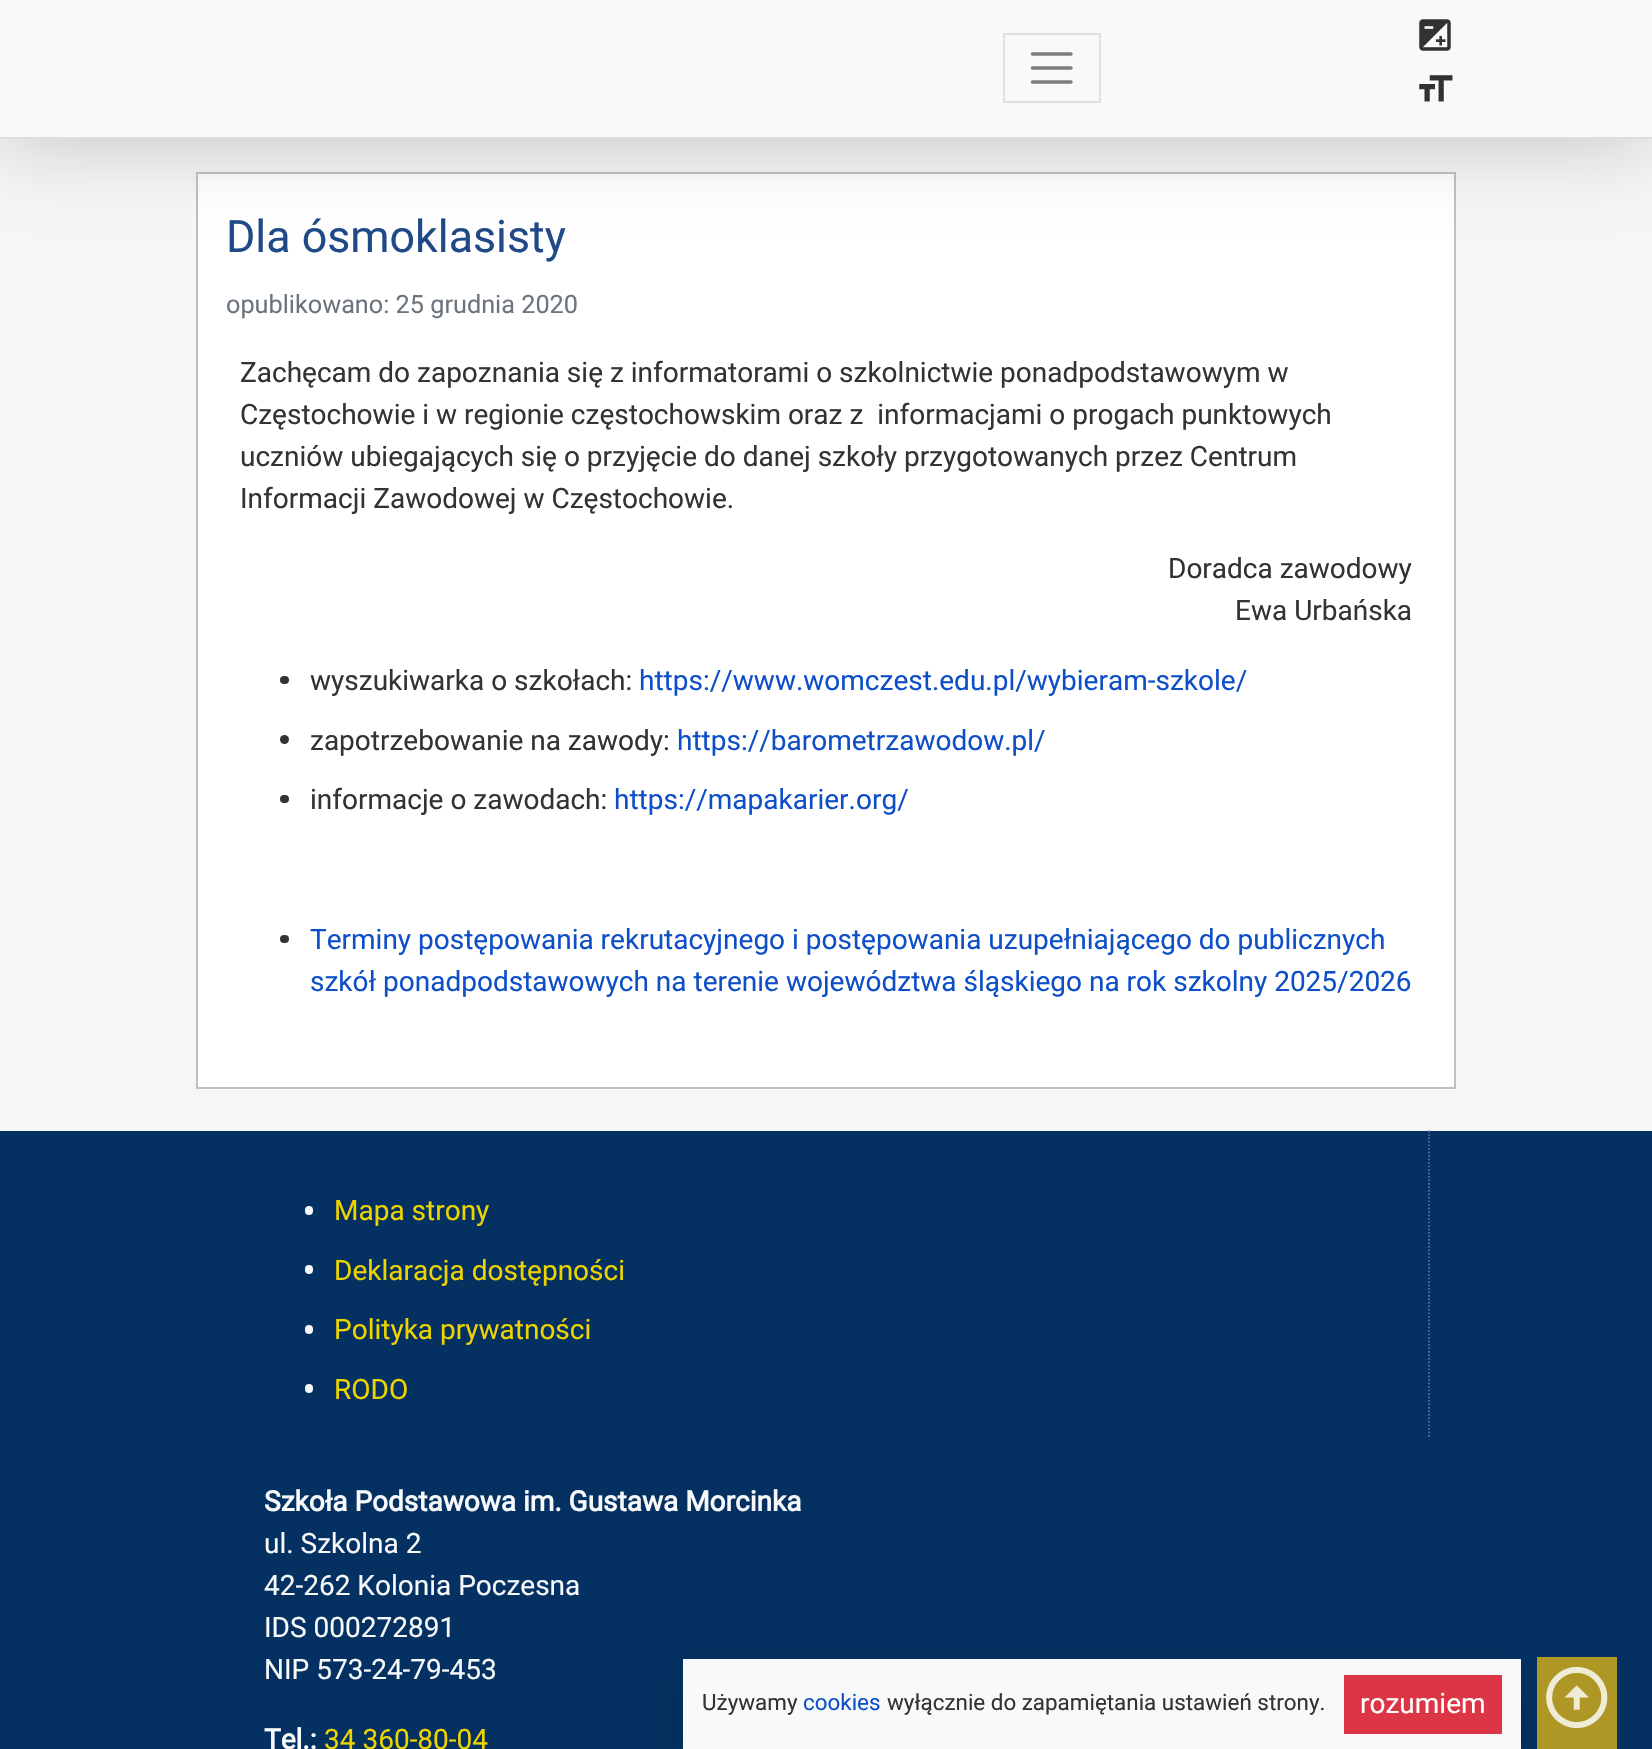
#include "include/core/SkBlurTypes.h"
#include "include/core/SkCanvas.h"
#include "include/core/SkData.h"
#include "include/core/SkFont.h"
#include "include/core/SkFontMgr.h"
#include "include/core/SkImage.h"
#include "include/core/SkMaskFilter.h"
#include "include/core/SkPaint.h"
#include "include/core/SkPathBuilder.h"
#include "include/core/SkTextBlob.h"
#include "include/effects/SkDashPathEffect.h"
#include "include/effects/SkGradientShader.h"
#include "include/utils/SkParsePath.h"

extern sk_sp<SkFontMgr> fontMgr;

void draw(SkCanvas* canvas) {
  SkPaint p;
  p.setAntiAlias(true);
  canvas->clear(SkColorSetRGB(246, 246, 246));
  p.setColor(SK_ColorWHITE);
  canvas->drawRect(SkRect::MakeLTRB(197, 173, 1455, 1088), p);
  p.setStyle(SkPaint::kStroke_Style);
  p.setStrokeWidth(2);
  p.setColor(SkColorSetRGB(192, 192, 192));
  canvas->drawRect(SkRect::MakeLTRB(197, 173, 1455, 1088), p);
  p.setStyle(SkPaint::kFill_Style);
  p.setColor(SkColorSetARGB(51, 0, 0, 0));
  p.setMaskFilter(SkMaskFilter::MakeBlur(kNormal_SkBlurStyle, 39.5f));
  canvas->drawRect(SkRect::MakeLTRB(0, 5, 1652, 144), p);
  p.setMaskFilter(nullptr);
  p.setColor(SkColorSetRGB(248, 249, 250));
  canvas->drawRect(SkRect::MakeLTRB(0, 0, 1652, 137), p);
  p.setColor(SkColorSetRGB(221, 221, 221));
  canvas->drawRect(SkRect::MakeLTRB(0, 137, 1652, 139), p);
  p.setStyle(SkPaint::kStroke_Style);
  p.setColor(SkColorSetRGB(223, 224, 225));
  canvas->drawRect(SkRect::MakeLTRB(1004, 34, 1100, 102), p);
  p.setStrokeWidth(3.5f);
  p.setStrokeCap(SkPaint::kRound_Cap);
  p.setColor(SkColorSetRGB(124, 125, 125));
  canvas->drawPath(SkPathBuilder().moveTo(1032.5f, 54).lineTo(1071, 54).moveTo(1032.5f, 68).lineTo(1071, 68).moveTo(1032.5f, 82).lineTo(1071, 82).detach(), p);
  canvas->drawImageRect(SkImages::DeferredFromEncodedData(SkData::MakeFromFileName("images/1.png")), SkRect::MakeLTRB(1419, 19, 1451, 51), SkSamplingOptions());
  canvas->drawImageRect(SkImages::DeferredFromEncodedData(SkData::MakeFromFileName("images/2.png")), SkRect::MakeLTRB(1419, 75, 1453, 102), SkSamplingOptions());
  p.setStyle(SkPaint::kFill_Style);
  p.setColor(SkColorSetRGB(51, 51, 51));
  canvas->drawRoundRect(SkRect::MakeLTRB(280, 676, 289, 684), 4, 4, p);
  canvas->drawCircle(284.5f, 739.5f, 4.5f, p);
  canvas->drawRoundRect(SkRect::MakeLTRB(280, 795, 289, 803), 4, 4, p);
  canvas->drawRoundRect(SkRect::MakeLTRB(280, 935, 289, 943), 4, 4, p);
  p.setColor(SkColorSetRGB(4, 49, 97));
  canvas->drawRect(SkRect::MakeLTRB(0, 1131, 1652, 1749), p);
  p.setStyle(SkPaint::kStroke_Style);
  p.setStrokeWidth(1.8f);
  p.setStrokeCap(SkPaint::kButt_Cap);
  p.setColor(SkColorSetRGB(79, 111, 144));
  p.setPathEffect(SkDashPathEffect::Make({{1.75f, 1.75f}}, 0));
  canvas->drawPath(SkPathBuilder().moveTo(1429, 1130.5f).lineTo(1429, 1438.5f).detach(), p);
  p.setPathEffect(nullptr);
  p.setStyle(SkPaint::kFill_Style);
  p.setColor(SkColorSetRGB(248, 249, 250));
  canvas->drawRoundRect(SkRect::MakeLTRB(305, 1206, 313, 1215), 4, 4, p);
  canvas->drawRoundRect(SkRect::MakeLTRB(305, 1265, 313, 1274), 4, 4, p);
  canvas->drawRoundRect(SkRect::MakeLTRB(305, 1325, 313, 1334), 4, 4, p);
  canvas->drawRoundRect(SkRect::MakeLTRB(305, 1384, 313, 1393), 4, 4, p);
  p.setColor(SkColorSetARGB(191, 0, 0, 0));
  p.setMaskFilter(SkMaskFilter::MakeBlur(kNormal_SkBlurStyle, 26));
  canvas->drawRect(SkRect::MakeLTRB(705, 1699, 1498, 1745), p);
  p.setMaskFilter(nullptr);
  p.setColor(SkColorSetRGB(248, 249, 250));
  canvas->drawRect(SkRect::MakeLTRB(683, 1659, 1521, 1749), p);
  p.setColor(SkColorSetRGB(220, 53, 69));
  canvas->drawRect(SkRect::MakeLTRB(1344, 1675, 1502, 1734), p);
  p.setColor(SkColorSetARGB(204, 216, 176, 20));
  canvas->drawRect(SkRect::MakeLTRB(1537, 1657, 1617, 1749), p);
  canvas->drawImageRect(SkImages::DeferredFromEncodedData(SkData::MakeFromFileName("images/3.png")), SkRect::MakeLTRB(1546, 1666, 1608, 1729), SkSamplingOptions());
  SkFont font1(fontMgr->matchFamilyStyle("Roboto", SkFontStyle::Normal()), 44.75f);
  font1.setSubpixel(true);
  p.setColor(SkColorSetRGB(32, 74, 135));
  canvas->drawString("Dla ósmoklasisty", 226, 252, font1, p);
  SkFont font2(fontMgr->matchFamilyStyle("Roboto", SkFontStyle::Normal()), 25.25f);
  font2.setSubpixel(true);
  p.setColor(SkColorSetRGB(108, 117, 125));
  canvas->drawString("opublikowano: 25 grudnia 2020", 226, 313, font2, p);
  SkFont font3(fontMgr->matchFamilyStyle("Roboto", SkFontStyle::Normal()), 28);
  font3.setSubpixel(true);
  p.setColor(SkColorSetRGB(51, 51, 51));
  canvas->drawString("Zachęcam do zapoznania się z informatorami o szkolnictwie ponadpodstawowym w", 240, 382, font3, p);
  canvas->drawString("Częstochowie i w regionie częstochowskim oraz z  informacjami o progach punktowych", 240, 424, font3, p);
  canvas->drawString("uczniów ubiegających się o przyjęcie do danej szkoły przygotowanych przez Centrum", 240, 466, font3, p);
  canvas->drawString("Informacji Zawodowej w Częstochowie.", 240, 508, font3, p);
  canvas->drawString("Doradca zawodowy", 1168, 578, font3, p);
  canvas->drawString("Ewa Urbańska", 1235, 620, font3, p);
  canvas->drawString("wyszukiwarka o szkołach:", 310, 690, font3, p);
  p.setColor(SkColorSetRGB(14, 79, 200));
  canvas->drawString("https://www.womczest.edu.pl/wybieram-szkole/", 639, 690, font3, p);
  p.setColor(SkColorSetRGB(51, 51, 51));
  canvas->drawString("zapotrzebowanie na zawody:", 310, 750, font3, p);
  p.setColor(SkColorSetRGB(14, 79, 200));
  canvas->drawString("https://barometrzawodow.pl/", 677, 750, font3, p);
  p.setColor(SkColorSetRGB(51, 51, 51));
  canvas->drawString("informacje o zawodach:", 310, 809, font3, p);
  p.setColor(SkColorSetRGB(14, 79, 200));
  canvas->drawString("https://mapakarier.org/", 614, 809, font3, p);
  canvas->drawString("Terminy postępowania rekrutacyjnego i postępowania uzupełniającego do publicznych", 310, 949, font3, p);
  canvas->drawString("szkół ponadpodstawowych na terenie województwa śląskiego na rok szkolny 2025/2026", 310, 991, font3, p);
  p.setColor(SkColorSetRGB(237, 212, 0));
  canvas->drawString("Mapa strony", 334, 1220, font3, p);
  canvas->drawString("Deklaracja dostępności", 334, 1280, font3, p);
  canvas->drawString("Polityka prywatności", 334, 1339, font3, p);
  canvas->drawString("RODO", 334, 1399, font3, p);
  SkFont font4(fontMgr->matchFamilyStyle("Roboto", SkFontStyle::Bold()), 28);
  font4.setSubpixel(true);
  p.setColor(SkColorSetRGB(248, 249, 250));
  canvas->drawString("Szkoła Podstawowa im. Gustawa Morcinka", 264, 1511, font4, p);
  canvas->drawString("ul. Szkolna 2", 264, 1553, font3, p);
  canvas->drawString("42-262 Kolonia Poczesna", 264, 1595, font3, p);
  canvas->drawString("IDS 000272891", 264, 1637, font3, p);
  canvas->drawString("NIP 573-24-79-453", 264, 1679, font3, p);
  canvas->drawString("Tel.:", 264, 1749, font4, p);
  p.setColor(SkColorSetRGB(237, 212, 0));
  canvas->drawString("34 360-80-04", 324, 1749, font3, p);
  SkFont font5(fontMgr->matchFamilyStyle("Roboto", SkFontStyle::Normal()), 22.4f);
  font5.setSubpixel(true);
  p.setColor(SkColorSetRGB(51, 51, 51));
  canvas->drawString("Używamy", 702, 1710, font5, p);
  p.setColor(SkColorSetRGB(14, 79, 200));
  canvas->drawString("cookies", 803, 1710, font5, p);
  p.setColor(SkColorSetRGB(51, 51, 51));
  canvas->drawString("wyłącznie do zapamiętania ustawień strony.", 887, 1710, font5, p);
  p.setColor(SK_ColorWHITE);
  canvas->drawString("rozumiem", 1360, 1713, font3, p);
}
